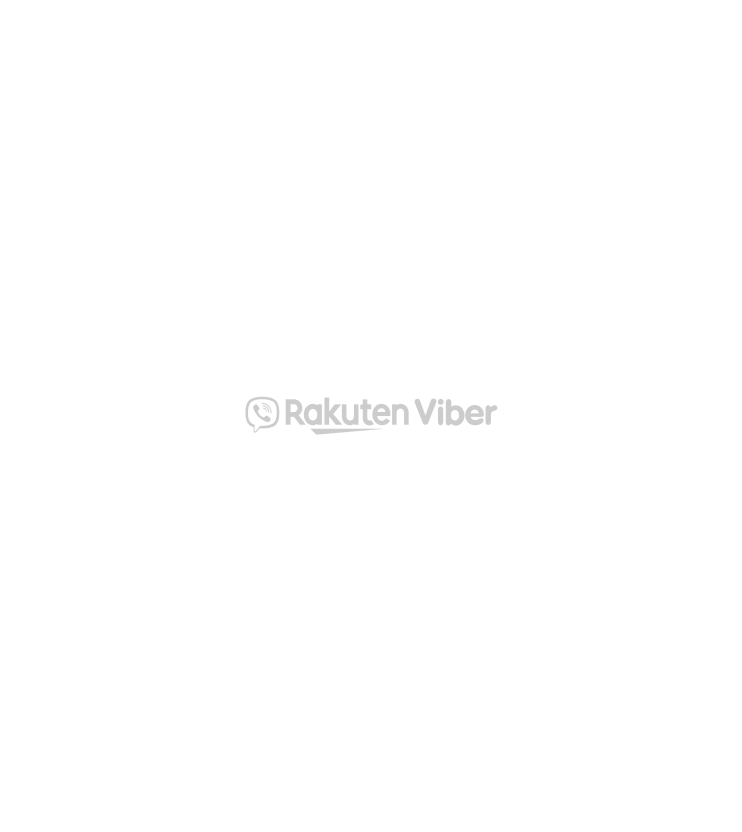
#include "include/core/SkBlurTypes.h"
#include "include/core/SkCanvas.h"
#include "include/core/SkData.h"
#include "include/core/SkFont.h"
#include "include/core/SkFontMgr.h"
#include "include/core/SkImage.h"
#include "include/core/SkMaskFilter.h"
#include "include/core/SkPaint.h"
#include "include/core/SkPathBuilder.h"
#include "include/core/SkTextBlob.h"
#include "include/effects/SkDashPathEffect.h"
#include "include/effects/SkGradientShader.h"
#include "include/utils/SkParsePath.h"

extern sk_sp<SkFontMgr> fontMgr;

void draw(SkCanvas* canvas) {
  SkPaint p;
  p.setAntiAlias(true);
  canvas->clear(SK_ColorWHITE);
  canvas->drawImageRect(SkImages::DeferredFromEncodedData(SkData::MakeFromFileName("images/1.png")), SkRect::MakeLTRB(245, 396, 498, 435), SkSamplingOptions());
}
